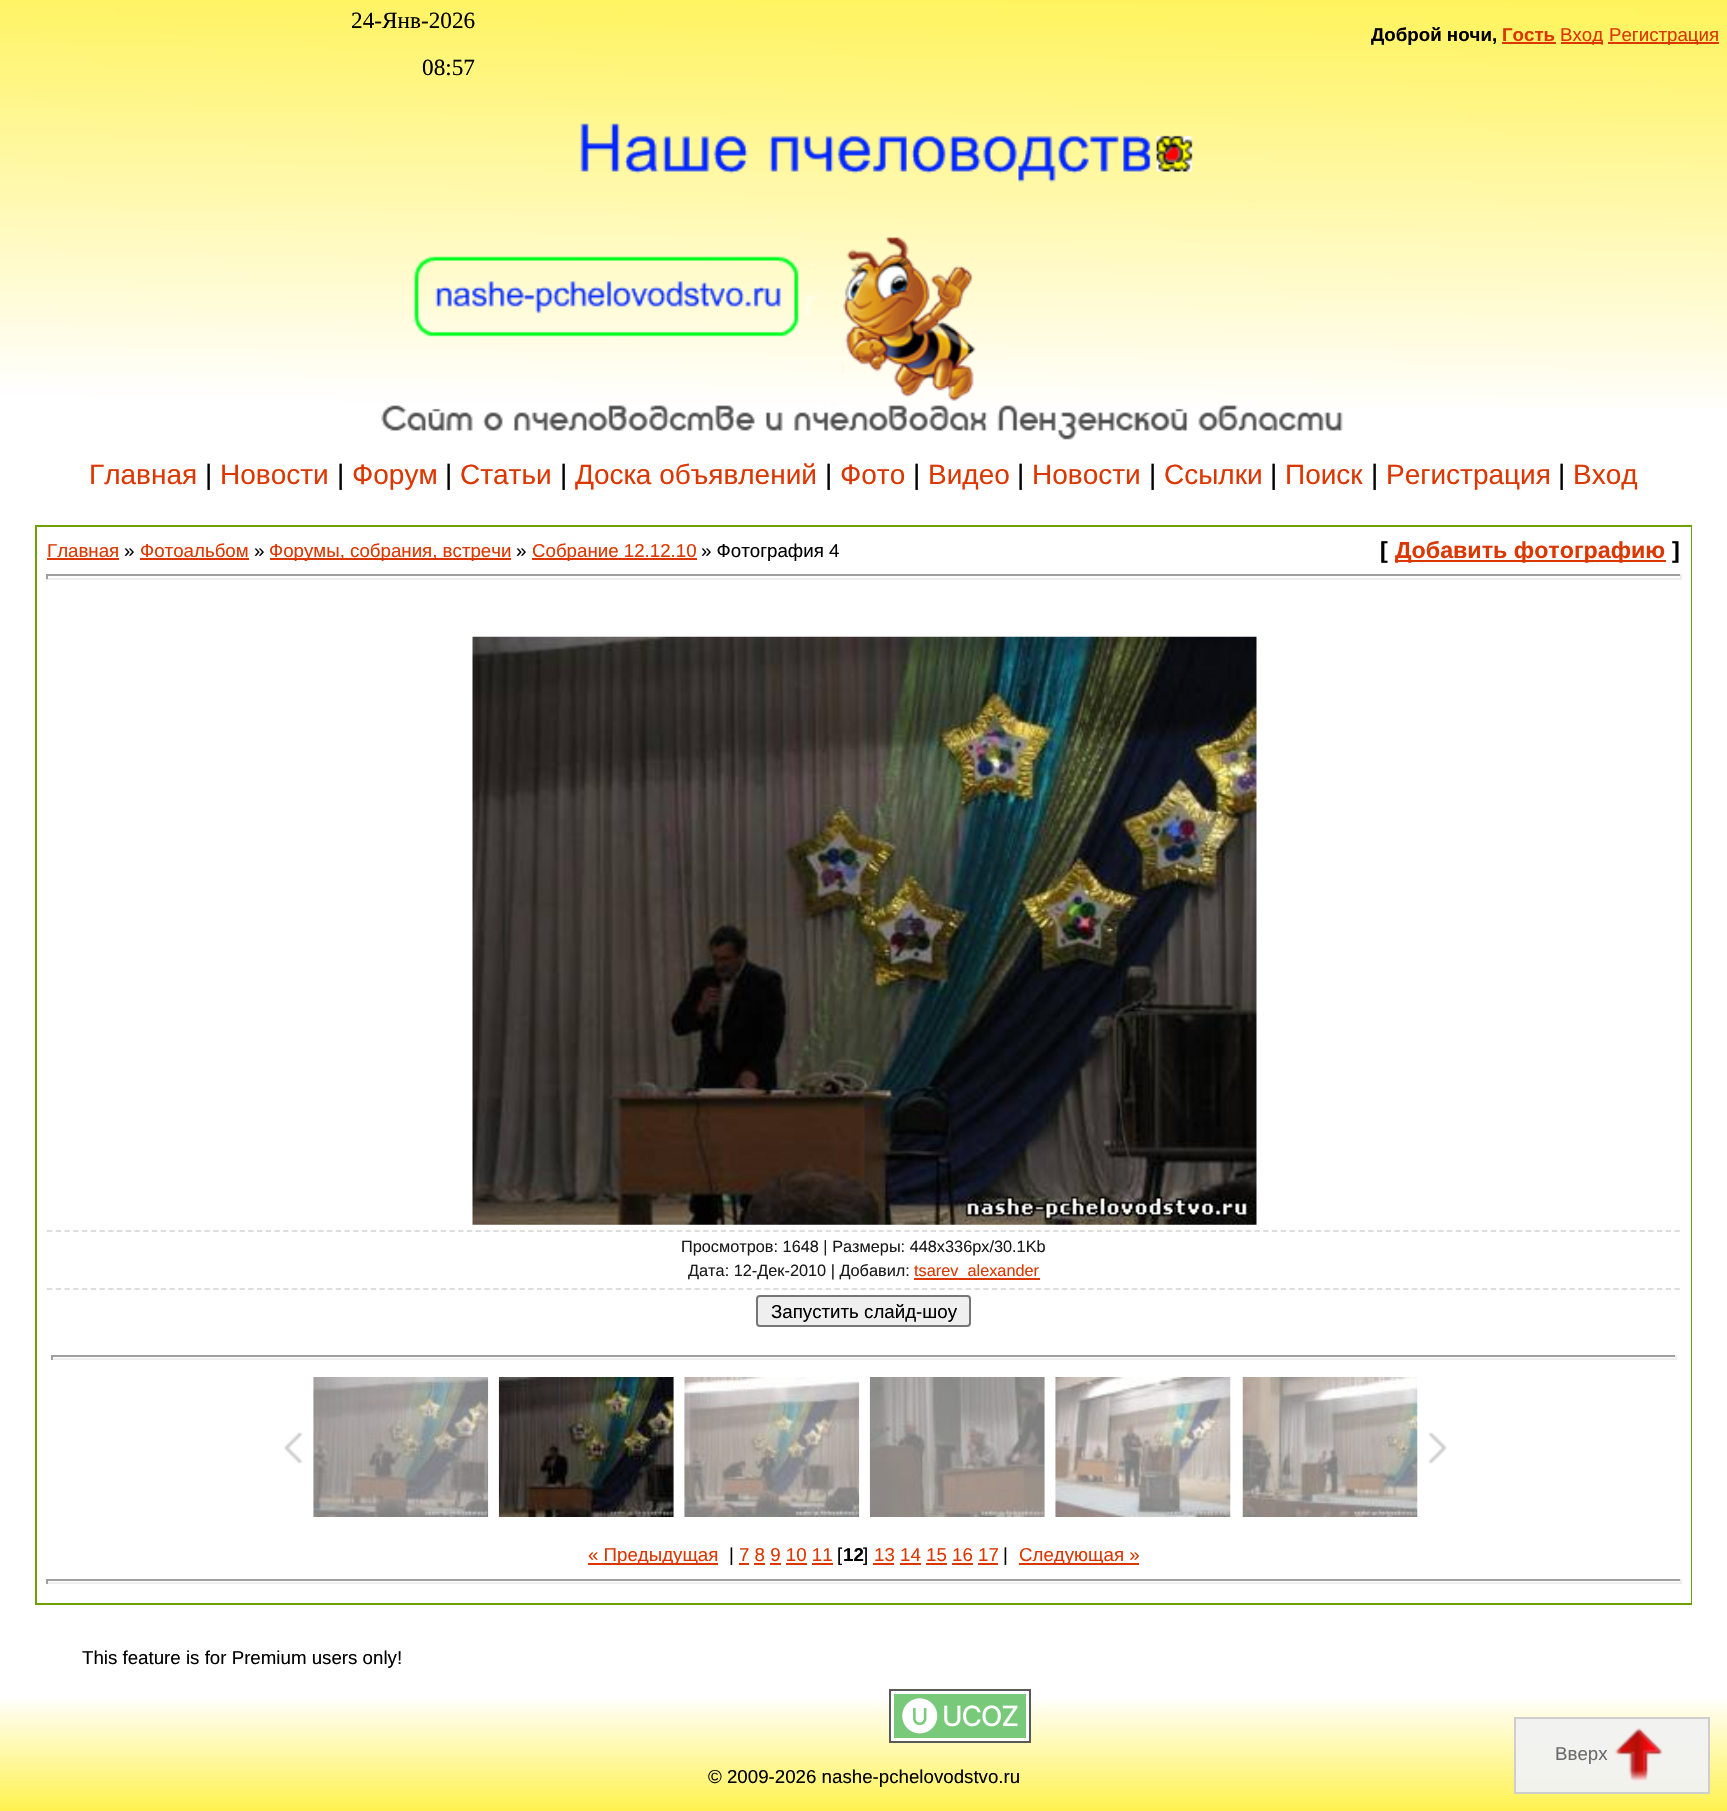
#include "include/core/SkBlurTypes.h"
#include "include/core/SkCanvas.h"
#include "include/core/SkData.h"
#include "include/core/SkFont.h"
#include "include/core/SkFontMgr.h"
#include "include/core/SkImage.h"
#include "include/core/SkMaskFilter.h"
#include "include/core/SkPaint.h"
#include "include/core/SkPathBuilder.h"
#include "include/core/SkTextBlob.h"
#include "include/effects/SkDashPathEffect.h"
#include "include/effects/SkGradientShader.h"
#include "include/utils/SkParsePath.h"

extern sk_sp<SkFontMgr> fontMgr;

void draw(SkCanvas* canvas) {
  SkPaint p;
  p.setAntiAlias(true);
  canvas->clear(SK_ColorWHITE);
  canvas->drawImageRect(SkImages::DeferredFromEncodedData(SkData::MakeFromFileName("images/1.png")), SkRect::MakeLTRB(0, 0, 1727, 409), SkSamplingOptions());
  p.setColor(SkColorSetRGB(220, 55, 0));
  canvas->drawRect(SkRect::MakeLTRB(1502, 42, 1556, 44), p);
  canvas->drawRect(SkRect::MakeLTRB(1561, 42, 1603, 44), p);
  canvas->drawRect(SkRect::MakeLTRB(1608, 42, 1719, 44), p);
  canvas->drawImageRect(SkImages::DeferredFromEncodedData(SkData::MakeFromFileName("images/2.png")), SkRect::MakeLTRB(381, 123, 1343, 440), SkSamplingOptions());
  p.setStyle(SkPaint::kStroke_Style);
  p.setStrokeWidth(2);
  p.setColor(SkColorSetRGB(109, 161, 4));
  canvas->drawRect(SkRect::MakeLTRB(36, 526, 1691, 1604), p);
  p.setStyle(SkPaint::kFill_Style);
  p.setColor(SK_ColorWHITE);
  canvas->drawRect(SkRect::MakeLTRB(1690, 527, 1691, 1603), p);
  p.setColor(SkColorSetRGB(220, 55, 0));
  canvas->drawRect(SkRect::MakeLTRB(47, 558, 119, 560), p);
  canvas->drawRect(SkRect::MakeLTRB(140, 558, 249, 560), p);
  canvas->drawRect(SkRect::MakeLTRB(270, 558, 511, 560), p);
  canvas->drawRect(SkRect::MakeLTRB(532, 558, 697, 560), p);
  canvas->drawRect(SkRect::MakeLTRB(1395, 560, 1666, 562), p);
  p.setColor(SkColorSetRGB(159, 159, 159));
  canvas->drawRect(SkRect::MakeLTRB(46, 574, 1682, 576), p);
  p.setColor(SkColorSetRGB(238, 238, 238));
  canvas->drawRect(SkRect::MakeLTRB(1680, 574, 1682, 579), p);
  canvas->drawRect(SkRect::MakeLTRB(46, 578, 1682, 580), p);
  p.setColor(SkColorSetRGB(159, 159, 159));
  canvas->drawRect(SkRect::MakeLTRB(46, 574, 48, 579), p);
  canvas->drawImageRect(SkImages::DeferredFromEncodedData(SkData::MakeFromFileName("images/3.png")), SkRect::MakeLTRB(472, 636, 1257, 1225), SkSamplingOptions());
  p.setStyle(SkPaint::kStroke_Style);
  p.setStrokeWidth(1.8f);
  p.setColor(SkColorSetRGB(221, 221, 221));
  p.setPathEffect(SkDashPathEffect::Make({{5.25f, 3.5f}}, 0));
  canvas->drawPath(SkPathBuilder().moveTo(47, 1231).lineTo(1680, 1231).detach(), p);
  p.setPathEffect(nullptr);
  p.setPathEffect(SkDashPathEffect::Make({{5.25f, 3.5f}}, 0));
  canvas->drawPath(SkPathBuilder().moveTo(47, 1289).lineTo(1680, 1289).detach(), p);
  p.setPathEffect(nullptr);
  p.setStyle(SkPaint::kFill_Style);
  p.setColor(SkColorSetRGB(220, 55, 0));
  canvas->drawRect(SkRect::MakeLTRB(914, 1278, 1040, 1280), p);
  p.setColor(SkColorSetRGB(239, 239, 239));
  canvas->drawRoundRect(SkRect::MakeLTRB(757, 1296, 970, 1326), 3, 3, p);
  p.setStyle(SkPaint::kStroke_Style);
  p.setStrokeWidth(2);
  p.setColor(SkColorSetRGB(118, 118, 118));
  canvas->drawRoundRect(SkRect::MakeLTRB(757, 1296, 970, 1326), 3, 3, p);
  p.setStyle(SkPaint::kFill_Style);
  p.setColor(SkColorSetRGB(159, 159, 159));
  canvas->drawRect(SkRect::MakeLTRB(51, 1355, 1677, 1357), p);
  p.setColor(SkColorSetRGB(238, 238, 238));
  canvas->drawRect(SkRect::MakeLTRB(1675, 1355, 1677, 1360), p);
  canvas->drawRect(SkRect::MakeLTRB(51, 1358, 1677, 1360), p);
  p.setColor(SkColorSetRGB(159, 159, 159));
  canvas->drawRect(SkRect::MakeLTRB(51, 1355, 53, 1360), p);
  canvas->drawImageRect(SkImages::DeferredFromEncodedData(SkData::MakeFromFileName("images/4.png")), SkRect::MakeLTRB(283, 1432, 303, 1464), SkSamplingOptions());
  canvas->drawImageRect(SkImages::DeferredFromEncodedData(SkData::MakeFromFileName("images/5.png")), SkRect::MakeLTRB(313, 1377, 489, 1517), SkSamplingOptions());
  canvas->drawImageRect(SkImages::DeferredFromEncodedData(SkData::MakeFromFileName("images/6.png")), SkRect::MakeLTRB(498, 1377, 674, 1517), SkSamplingOptions());
  canvas->drawImageRect(SkImages::DeferredFromEncodedData(SkData::MakeFromFileName("images/7.png")), SkRect::MakeLTRB(684, 1377, 860, 1517), SkSamplingOptions());
  canvas->drawImageRect(SkImages::DeferredFromEncodedData(SkData::MakeFromFileName("images/8.png")), SkRect::MakeLTRB(869, 1377, 1045, 1517), SkSamplingOptions());
  canvas->drawImageRect(SkImages::DeferredFromEncodedData(SkData::MakeFromFileName("images/9.png")), SkRect::MakeLTRB(1055, 1377, 1231, 1517), SkSamplingOptions());
  canvas->drawImageRect(SkImages::DeferredFromEncodedData(SkData::MakeFromFileName("images/10.png")), SkRect::MakeLTRB(1242, 1377, 1418, 1517), SkSamplingOptions());
  canvas->drawImageRect(SkImages::DeferredFromEncodedData(SkData::MakeFromFileName("images/11.png")), SkRect::MakeLTRB(1428, 1432, 1447, 1464), SkSamplingOptions());
  p.setColor(SkColorSetRGB(220, 55, 0));
  canvas->drawRect(SkRect::MakeLTRB(588, 1563, 718, 1565), p);
  canvas->drawRect(SkRect::MakeLTRB(739, 1563, 749, 1565), p);
  canvas->drawRect(SkRect::MakeLTRB(873, 1563, 894, 1565), p);
  canvas->drawRect(SkRect::MakeLTRB(1019, 1563, 1139, 1565), p);
  canvas->drawRect(SkRect::MakeLTRB(754, 1563, 765, 1565), p);
  canvas->drawRect(SkRect::MakeLTRB(770, 1563, 781, 1565), p);
  canvas->drawRect(SkRect::MakeLTRB(786, 1563, 807, 1565), p);
  canvas->drawRect(SkRect::MakeLTRB(812, 1563, 833, 1565), p);
  canvas->drawRect(SkRect::MakeLTRB(900, 1563, 921, 1565), p);
  canvas->drawRect(SkRect::MakeLTRB(926, 1563, 947, 1565), p);
  canvas->drawRect(SkRect::MakeLTRB(952, 1563, 973, 1565), p);
  canvas->drawRect(SkRect::MakeLTRB(978, 1563, 998, 1565), p);
  p.setColor(SkColorSetRGB(159, 159, 159));
  canvas->drawRect(SkRect::MakeLTRB(46, 1579, 1682, 1581), p);
  p.setColor(SkColorSetRGB(238, 238, 238));
  canvas->drawRect(SkRect::MakeLTRB(1680, 1579, 1682, 1584), p);
  canvas->drawRect(SkRect::MakeLTRB(46, 1582, 1682, 1584), p);
  p.setColor(SkColorSetRGB(159, 159, 159));
  canvas->drawRect(SkRect::MakeLTRB(46, 1579, 48, 1584), p);
  canvas->drawImageRect(SkImages::DeferredFromEncodedData(SkData::MakeFromFileName("images/13.png")), SkRect::MakeLTRB(0, 1699, 1727, 1811), SkSamplingOptions());
  p.setColor(SkColorSetARGB(245, 241, 241, 241));
  canvas->drawRect(SkRect::MakeLTRB(1514, 1717, 1710, 1794), p);
  p.setStyle(SkPaint::kStroke_Style);
  p.setColor(SkColorSetARGB(245, 204, 204, 204));
  canvas->drawRect(SkRect::MakeLTRB(1515, 1718, 1709, 1793), p);
  canvas->drawImageRect(SkImages::DeferredFromEncodedData(SkData::MakeFromFileName("images/12.png")), SkRect::MakeLTRB(1614, 1728, 1663, 1782), SkSamplingOptions());
  canvas->drawImageRect(SkImages::DeferredFromEncodedData(SkData::MakeFromFileName("images/14.png")), SkRect::MakeLTRB(889, 1689, 1031, 1743), SkSamplingOptions());
  SkFont font1(fontMgr->matchFamilyStyle("Liberation Serif", SkFontStyle::Normal()), 23.25f);
  font1.setSubpixel(true);
  p.setStyle(SkPaint::kFill_Style);
  p.setColor(SK_ColorBLACK);
  canvas->drawString("24-Янв-2026", 351, 28, font1, p);
  canvas->drawString("08:57", 422, 75, font1, p);
  SkFont font2(fontMgr->matchFamilyStyle("Liberation Sans", SkFontStyle::Bold()), 18.7f);
  font2.setSubpixel(true);
  canvas->drawString("Доброй ночи,", 1371, 41, font2, p);
  p.setColor(SkColorSetRGB(220, 55, 0));
  canvas->drawString("Гость", 1502, 41, font2, p);
  SkFont font3(fontMgr->matchFamilyStyle("Liberation Sans", SkFontStyle::Normal()), 18.7f);
  font3.setSubpixel(true);
  canvas->drawString("Вход", 1560, 41, font3, p);
  canvas->drawString("Регистрация", 1609, 41, font3, p);
  SkFont font4(fontMgr->matchFamilyStyle("Liberation Sans", SkFontStyle::Normal()), 28);
  font4.setSubpixel(true);
  canvas->drawString("Главная", 89, 484, font4, p);
  p.setColor(SK_ColorBLACK);
  canvas->drawString("|", 205, 484, font4, p);
  p.setColor(SkColorSetRGB(220, 55, 0));
  canvas->drawString("Новости", 220, 484, font4, p);
  p.setColor(SK_ColorBLACK);
  canvas->drawString("|", 337, 484, font4, p);
  p.setColor(SkColorSetRGB(220, 55, 0));
  canvas->drawString("Форум", 352, 484, font4, p);
  p.setColor(SK_ColorBLACK);
  canvas->drawString("|", 445, 484, font4, p);
  p.setColor(SkColorSetRGB(220, 55, 0));
  canvas->drawString("Статьи", 460, 484, font4, p);
  p.setColor(SK_ColorBLACK);
  canvas->drawString("|", 560, 484, font4, p);
  p.setColor(SkColorSetRGB(220, 55, 0));
  canvas->drawString("Доска объявлений", 575, 484, font4, p);
  p.setColor(SK_ColorBLACK);
  canvas->drawString("|", 825, 484, font4, p);
  p.setColor(SkColorSetRGB(220, 55, 0));
  canvas->drawString("Фото", 840, 484, font4, p);
  p.setColor(SK_ColorBLACK);
  canvas->drawString("|", 913, 484, font4, p);
  p.setColor(SkColorSetRGB(220, 55, 0));
  canvas->drawString("Видео", 928, 484, font4, p);
  p.setColor(SK_ColorBLACK);
  canvas->drawString("|", 1017, 484, font4, p);
  p.setColor(SkColorSetRGB(220, 55, 0));
  canvas->drawString("Новости", 1032, 484, font4, p);
  p.setColor(SK_ColorBLACK);
  canvas->drawString("|", 1149, 484, font4, p);
  p.setColor(SkColorSetRGB(220, 55, 0));
  canvas->drawString("Ссылки", 1164, 484, font4, p);
  p.setColor(SK_ColorBLACK);
  canvas->drawString("|", 1270, 484, font4, p);
  p.setColor(SkColorSetRGB(220, 55, 0));
  canvas->drawString("Поиск", 1285, 484, font4, p);
  p.setColor(SK_ColorBLACK);
  canvas->drawString("|", 1371, 484, font4, p);
  p.setColor(SkColorSetRGB(220, 55, 0));
  canvas->drawString("Регистрация", 1386, 484, font4, p);
  p.setColor(SK_ColorBLACK);
  canvas->drawString("|", 1558, 484, font4, p);
  p.setColor(SkColorSetRGB(220, 55, 0));
  canvas->drawString("Вход", 1573, 484, font4, p);
  canvas->drawString("Главная", 47, 557, font3, p);
  p.setColor(SK_ColorBLACK);
  canvas->drawString("»", 124, 557, font3, p);
  p.setColor(SkColorSetRGB(220, 55, 0));
  canvas->drawString("Фотоальбом", 140, 557, font3, p);
  p.setColor(SK_ColorBLACK);
  canvas->drawString("»", 254, 557, font3, p);
  p.setColor(SkColorSetRGB(220, 55, 0));
  canvas->drawString("Форумы, собрания, встречи", 269, 557, font3, p);
  p.setColor(SK_ColorBLACK);
  canvas->drawString("»", 516, 557, font3, p);
  p.setColor(SkColorSetRGB(220, 55, 0));
  canvas->drawString("Собрание 12.12.10", 532, 557, font3, p);
  p.setColor(SK_ColorBLACK);
  canvas->drawString("» Фотография 4", 701, 557, font3, p);
  SkFont font5(fontMgr->matchFamilyStyle("Liberation Sans", SkFontStyle::Bold()), 23.25f);
  font5.setSubpixel(true);
  canvas->drawString("[", 1380, 558, font5, p);
  p.setColor(SkColorSetRGB(220, 55, 0));
  canvas->drawString("Добавить фотографию", 1395, 558, font5, p);
  p.setColor(SK_ColorBLACK);
  canvas->drawString("]", 1672, 558, font5, p);
  SkFont font6(fontMgr->matchFamilyStyle("Liberation Sans", SkFontStyle::Normal()), 16.3f);
  font6.setSubpixel(true);
  p.setColor(SkColorSetRGB(26, 26, 26));
  canvas->drawString("Просмотров: 1648 | Размеры: 448x336px/30.1Kb", 681, 1252, font6, p);
  canvas->drawString("Дата: 12-Дек-2010 | Добавил:", 688, 1276, font6, p);
  p.setColor(SkColorSetRGB(220, 55, 0));
  canvas->drawString("tsarev_alexander", 914, 1276, font6, p);
  p.setColor(SK_ColorBLACK);
  canvas->drawString("Запустить слайд-шоу", 771, 1318, font3, p);
  p.setColor(SkColorSetRGB(220, 55, 0));
  canvas->drawString("« Предыдущая", 588, 1561, font3, p);
  p.setColor(SK_ColorBLACK);
  canvas->drawString("|", 729, 1561, font3, p);
  p.setColor(SkColorSetRGB(220, 55, 0));
  canvas->drawString("7 8 9 10 11", 739, 1561, font3, p);
  p.setColor(SK_ColorBLACK);
  canvas->drawString("[", 837, 1561, font3, p);
  canvas->drawString("12", 843, 1561, font2, p);
  canvas->drawString("]", 863, 1561, font3, p);
  p.setColor(SkColorSetRGB(220, 55, 0));
  canvas->drawString("13 14 15 16 17", 874, 1561, font3, p);
  p.setColor(SK_ColorBLACK);
  canvas->drawString("|", 1003, 1561, font3, p);
  p.setColor(SkColorSetRGB(220, 55, 0));
  canvas->drawString("Следующая »", 1019, 1561, font3, p);
  p.setColor(SK_ColorBLACK);
  canvas->drawString("This feature is for Premium users only!", 82, 1664, font3, p);
  p.setColor(SkColorSetRGB(107, 107, 107));
  canvas->drawString("Вверх", 1555, 1760, font3, p);
  p.setColor(SK_ColorBLACK);
  canvas->drawString("© 2009-2026 nashe-pchelovodstvo.ru", 708, 1783, font3, p);
}
